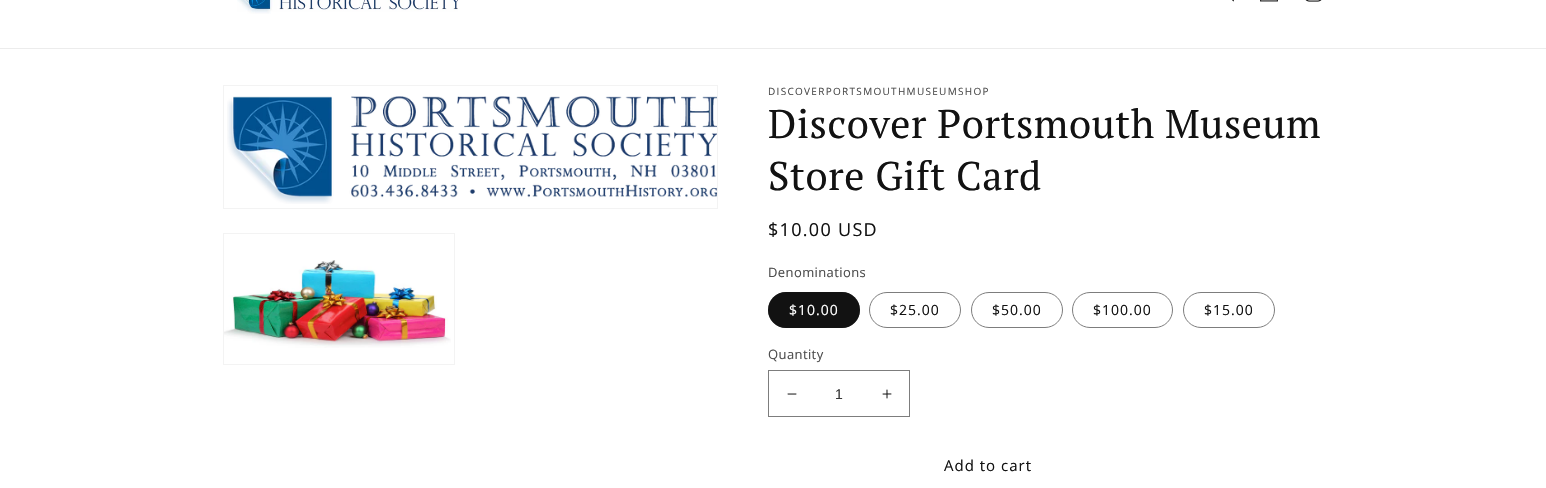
#include "include/core/SkBlurTypes.h"
#include "include/core/SkCanvas.h"
#include "include/core/SkData.h"
#include "include/core/SkFont.h"
#include "include/core/SkFontMgr.h"
#include "include/core/SkImage.h"
#include "include/core/SkMaskFilter.h"
#include "include/core/SkPaint.h"
#include "include/core/SkPathBuilder.h"
#include "include/core/SkTextBlob.h"
#include "include/effects/SkDashPathEffect.h"
#include "include/effects/SkGradientShader.h"
#include "include/utils/SkParsePath.h"

extern sk_sp<SkFontMgr> fontMgr;

void draw(SkCanvas* canvas) {
  SkPaint p;
  p.setAntiAlias(true);
  auto spacedText = [&](const char* s, float x, float y, const SkFont& font, const SkPaint& ink, float letter, float word) {
    std::vector<SkGlyphID> glyphs(font.countText(s, strlen(s), SkTextEncoding::kUTF8));
    std::vector<float> xs(glyphs.size());
    font.textToGlyphs(s, strlen(s), SkTextEncoding::kUTF8, glyphs);
    font.getXPos(glyphs, xs, x);
    float extra = 0;
    for (size_t i = 0; i < glyphs.size(); i++) {
      xs[i] += extra;
      extra += letter + word * (glyphs[i] == font.unicharToGlyph(' '));
    }
    canvas->drawTextBlob(SkTextBlob::MakeFromPosHGlyphs(glyphs, xs, y, font), 0, 0, ink);
  };
  canvas->clear(SK_ColorWHITE);
  p.setColor(SkColorSetRGB(236, 236, 236));
  canvas->drawRect(SkRect::MakeLTRB(0, 48, 1546, 49), p);
  canvas->drawImageRect(SkImages::DeferredFromEncodedData(SkData::MakeFromFileName("images/1.png")), SkRect::MakeLTRB(237, 0, 458, 14), SkSamplingOptions());
  canvas->drawImageRect(SkImages::DeferredFromEncodedData(SkData::MakeFromFileName("images/2.png")), SkRect::MakeLTRB(1232, 0, 1234, 2), SkSamplingOptions());
  canvas->drawImageRect(SkImages::DeferredFromEncodedData(SkData::MakeFromFileName("images/3.png")), SkRect::MakeLTRB(1260, 0, 1278, 2), SkSamplingOptions());
  canvas->drawImageRect(SkImages::DeferredFromEncodedData(SkData::MakeFromFileName("images/4.png")), SkRect::MakeLTRB(1305, 0, 1322, 2), SkSamplingOptions());
  p.setStyle(SkPaint::kStroke_Style);
  p.setStrokeWidth(1);
  p.setColor(SkColorSetRGB(243, 243, 243));
  canvas->drawRect(SkRect::MakeLTRB(223.5f, 85.5f, 717.5f, 208.5f), p);
  canvas->drawImageRect(SkImages::DeferredFromEncodedData(SkData::MakeFromFileName("images/5.png")), SkRect::MakeLTRB(227, 96, 717, 204), SkSamplingOptions());
  canvas->drawRect(SkRect::MakeLTRB(223.5f, 233.5f, 454.5f, 364.5f), p);
  canvas->drawImageRect(SkImages::DeferredFromEncodedData(SkData::MakeFromFileName("images/6.png")), SkRect::MakeLTRB(224, 260, 451, 348), SkSamplingOptions());
  p.setStyle(SkPaint::kFill_Style);
  p.setColor(SkColorSetRGB(18, 18, 18));
  canvas->drawRoundRect(SkRect::MakeLTRB(768, 292, 860, 328), 18, 18, p);
  p.setStyle(SkPaint::kStroke_Style);
  p.setColor(SkColorSetARGB(140, 18, 18, 18));
  canvas->drawRoundRect(SkRect::MakeLTRB(768.5f, 292.5f, 859.5f, 327.5f), 17.5f, 17.5f, p);
  p.setColor(SkColorSetRGB(125, 125, 125));
  canvas->drawRoundRect(SkRect::MakeLTRB(869.5f, 292.5f, 960.5f, 327.5f), 17.5f, 17.5f, p);
  canvas->drawRoundRect(SkRect::MakeLTRB(971.5f, 292.5f, 1062.5f, 327.5f), 17.5f, 17.5f, p);
  canvas->drawRoundRect(SkRect::MakeLTRB(1072.5f, 292.5f, 1172.5f, 327.5f), 17.5f, 17.5f, p);
  canvas->drawRoundRect(SkRect::MakeLTRB(1183.5f, 292.5f, 1274.5f, 327.5f), 17.5f, 17.5f, p);
  canvas->drawImageRect(SkImages::DeferredFromEncodedData(SkData::MakeFromFileName("images/7.png")), SkRect::MakeLTRB(787, 393, 797, 395), SkSamplingOptions());
  canvas->drawImageRect(SkImages::DeferredFromEncodedData(SkData::MakeFromFileName("images/8.png")), SkRect::MakeLTRB(882, 389, 892, 399), SkSamplingOptions());
  canvas->drawRect(SkRect::MakeLTRB(768.5f, 370.5f, 909.5f, 416.5f), p);
  SkFont font1(fontMgr->matchFamilyStyle("Open Sans", SkFontStyle::Normal()), 10);
  font1.setSubpixel(true);
  p.setStyle(SkPaint::kFill_Style);
  p.setColor(SkColorSetRGB(77, 77, 77));
  spacedText("DISCOVERPORTSMOUTHMUSEUMSHOP", 768, 95, font1, p, 1.3f, 0);
  SkFont font2(fontMgr->matchFamilyStyle("PT Serif", SkFontStyle::Normal()), 40);
  font2.setSubpixel(true);
  p.setColor(SkColorSetRGB(18, 18, 18));
  spacedText("Discover Portsmouth Museum", 768, 138, font2, p, 0.6f, 0);
  spacedText("Store Gift Card", 768, 190, font2, p, 0.6f, 0);
  SkFont font3(fontMgr->matchFamilyStyle("Open Sans", SkFontStyle::Normal()), 18);
  font3.setSubpixel(true);
  spacedText("$10.00 USD", 768, 236, font3, p, 1.3f, 0);
  SkFont font4(fontMgr->matchFamilyStyle("Open Sans", SkFontStyle::Normal()), 13);
  font4.setSubpixel(true);
  p.setColor(SkColorSetRGB(77, 77, 77));
  spacedText("Denominations", 768, 277, font4, p, 0.4f, 0);
  SkFont font5(fontMgr->matchFamilyStyle("Open Sans", SkFontStyle::Normal()), 14);
  font5.setSubpixel(true);
  p.setColor(SK_ColorWHITE);
  spacedText("$10.00", 789, 315, font5, p, 1, 0);
  p.setColor(SkColorSetRGB(18, 18, 18));
  spacedText("$25.00", 890, 315, font5, p, 1, 0);
  spacedText("$50.00", 992, 315, font5, p, 1, 0);
  spacedText("$100.00", 1093, 315, font5, p, 1, 0);
  spacedText("$15.00", 1204, 315, font5, p, 1, 0);
  p.setColor(SkColorSetRGB(77, 77, 77));
  spacedText("Quantity", 768, 359, font4, p, 0.4f, 0);
  SkFont font6(fontMgr->matchFamilyStyle("Liberation Sans", SkFontStyle::Normal()), 14);
  font6.setSubpixel(true);
  p.setColor(SkColorSetRGB(54, 54, 54));
  canvas->drawString("1", 835, 399, font6, p);
  SkFont font7(fontMgr->matchFamilyStyle("Open Sans", SkFontStyle::Normal()), 15);
  font7.setSubpixel(true);
  p.setColor(SkColorSetRGB(18, 18, 18));
  spacedText("Add to cart", 944, 471, font7, p, 1, 0);
}
